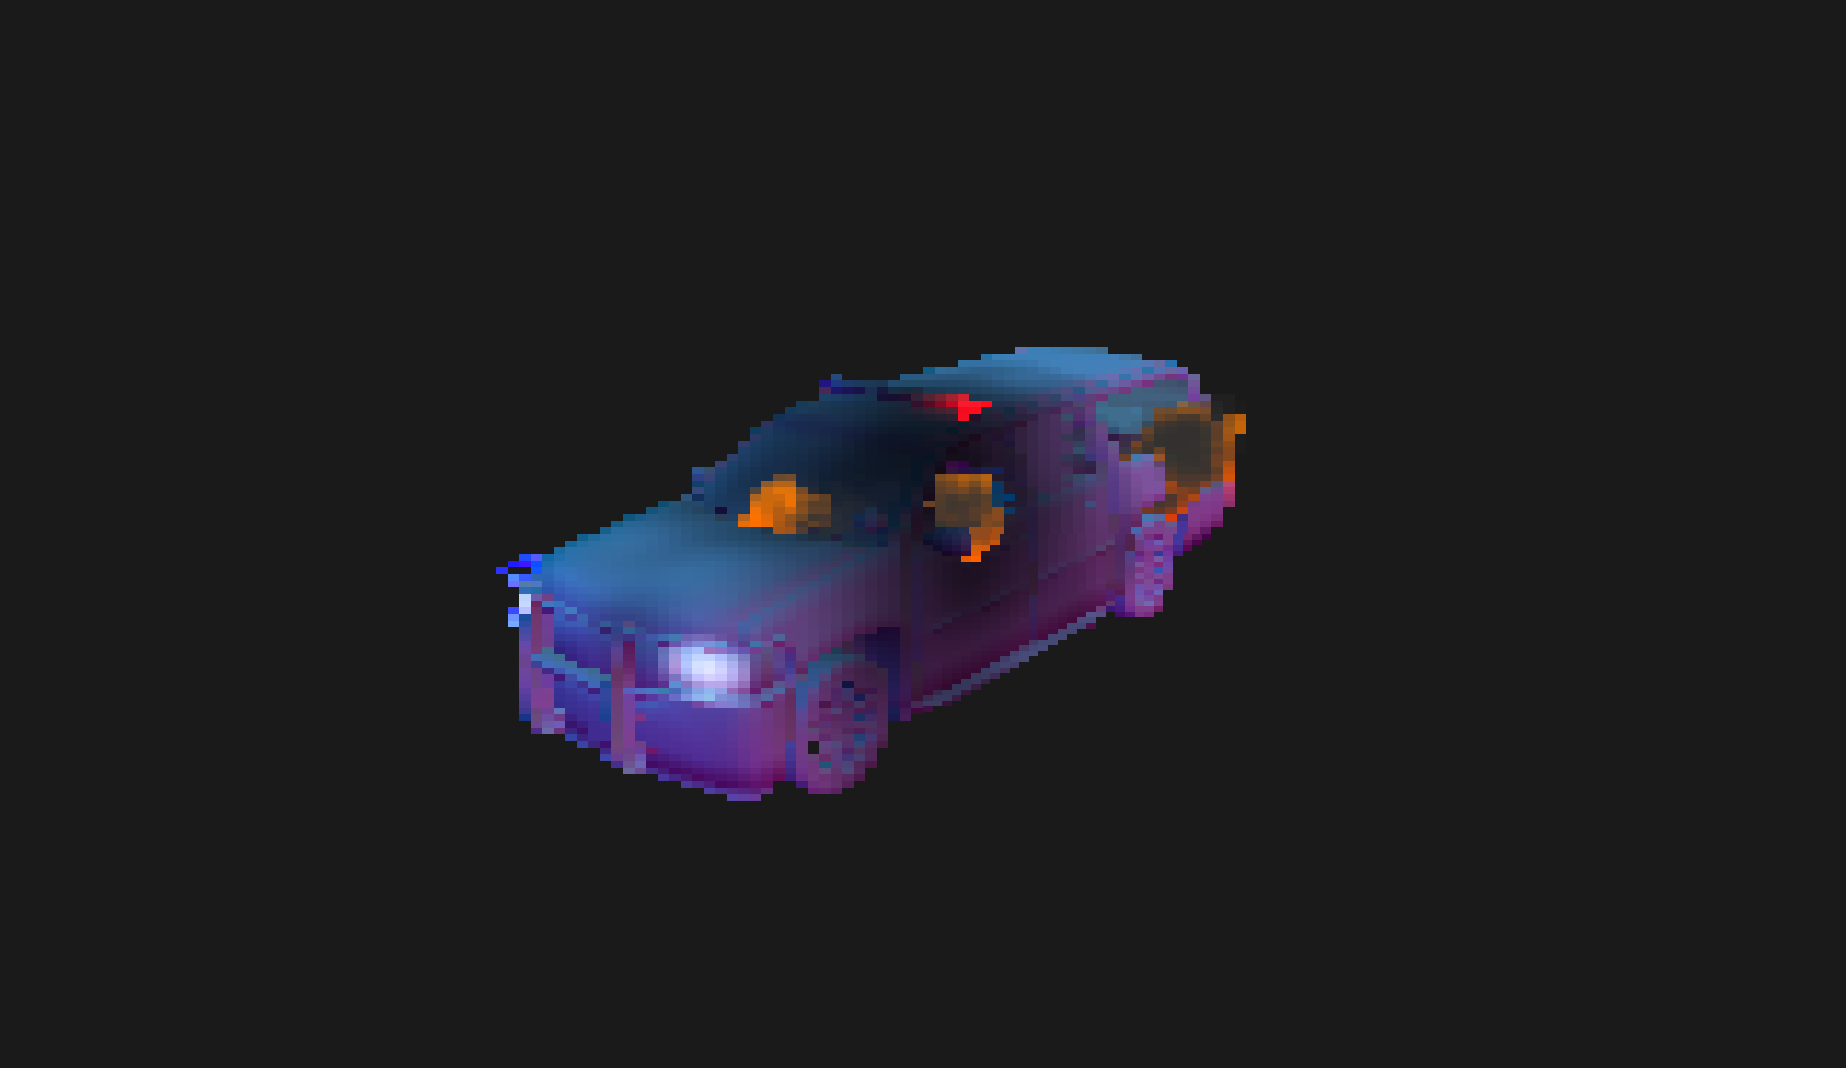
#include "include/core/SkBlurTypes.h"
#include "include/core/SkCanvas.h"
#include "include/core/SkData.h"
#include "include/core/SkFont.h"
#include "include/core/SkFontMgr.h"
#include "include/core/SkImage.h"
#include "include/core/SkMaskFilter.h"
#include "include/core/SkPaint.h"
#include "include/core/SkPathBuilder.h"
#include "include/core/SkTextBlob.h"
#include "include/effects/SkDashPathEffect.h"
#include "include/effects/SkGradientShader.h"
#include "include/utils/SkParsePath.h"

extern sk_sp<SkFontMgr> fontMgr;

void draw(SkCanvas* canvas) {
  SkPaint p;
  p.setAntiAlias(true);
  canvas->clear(SK_ColorWHITE);
  canvas->drawImageRect(SkImages::DeferredFromEncodedData(SkData::MakeFromFileName("images/1.png")), SkRect::MakeLTRB(0, 0, 1846, 1068), SkSamplingOptions());
}
